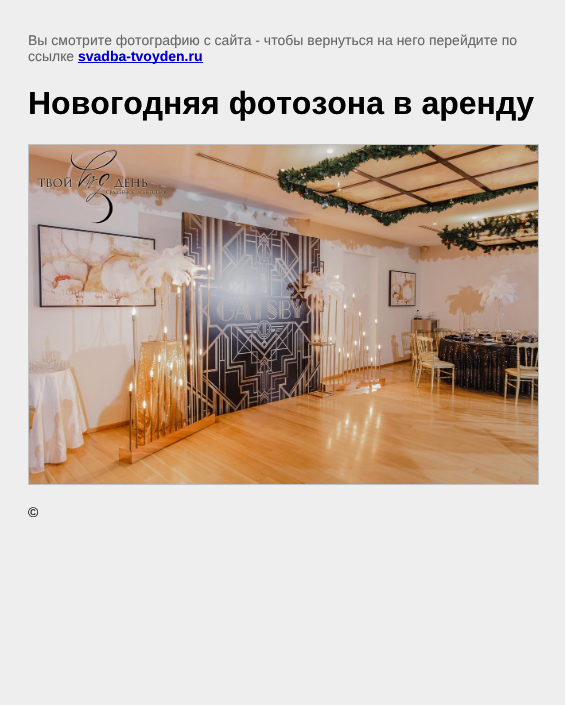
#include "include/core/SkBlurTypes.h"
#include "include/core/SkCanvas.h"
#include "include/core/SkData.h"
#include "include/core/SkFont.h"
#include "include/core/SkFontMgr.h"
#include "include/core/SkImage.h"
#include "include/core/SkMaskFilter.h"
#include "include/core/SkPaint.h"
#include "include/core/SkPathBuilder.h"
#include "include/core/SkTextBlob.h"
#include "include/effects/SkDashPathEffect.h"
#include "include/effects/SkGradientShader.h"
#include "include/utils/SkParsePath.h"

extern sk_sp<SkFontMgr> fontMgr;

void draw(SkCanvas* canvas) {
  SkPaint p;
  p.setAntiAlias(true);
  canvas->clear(SkColorSetRGB(238, 238, 238));
  p.setColor(SkColorSetRGB(0, 0, 204));
  canvas->drawRect(SkRect::MakeLTRB(78, 62, 203, 63), p);
  p.setStyle(SkPaint::kStroke_Style);
  p.setStrokeWidth(1);
  p.setColor(SkColorSetRGB(192, 192, 192));
  canvas->drawRect(SkRect::MakeLTRB(28.5f, 144.5f, 538.5f, 484.5f), p);
  canvas->drawImageRect(SkImages::DeferredFromEncodedData(SkData::MakeFromFileName("images/1.png")), SkRect::MakeLTRB(29, 145, 538, 484), SkSamplingOptions());
  SkFont font1(fontMgr->matchFamilyStyle("Liberation Sans", SkFontStyle::Normal()), 14);
  font1.setSubpixel(true);
  p.setStyle(SkPaint::kFill_Style);
  p.setColor(SkColorSetRGB(102, 102, 102));
  canvas->drawString("Вы смотрите фотографию с сайта - чтобы вернуться на него перейдите по", 28, 45, font1, p);
  canvas->drawString("ссылке", 28, 61, font1, p);
  SkFont font2(fontMgr->matchFamilyStyle("Liberation Sans", SkFontStyle::Bold()), 14);
  font2.setSubpixel(true);
  p.setColor(SkColorSetRGB(0, 0, 204));
  canvas->drawString("svadba-tvoyden.ru", 78, 61, font2, p);
  SkFont font3(fontMgr->matchFamilyStyle("Liberation Sans", SkFontStyle::Bold()), 32);
  font3.setSubpixel(true);
  p.setColor(SK_ColorBLACK);
  canvas->drawString("Новогодняя фотозона в аренду", 28, 114, font3, p);
  canvas->drawString("©", 28, 517, font1, p);
}
